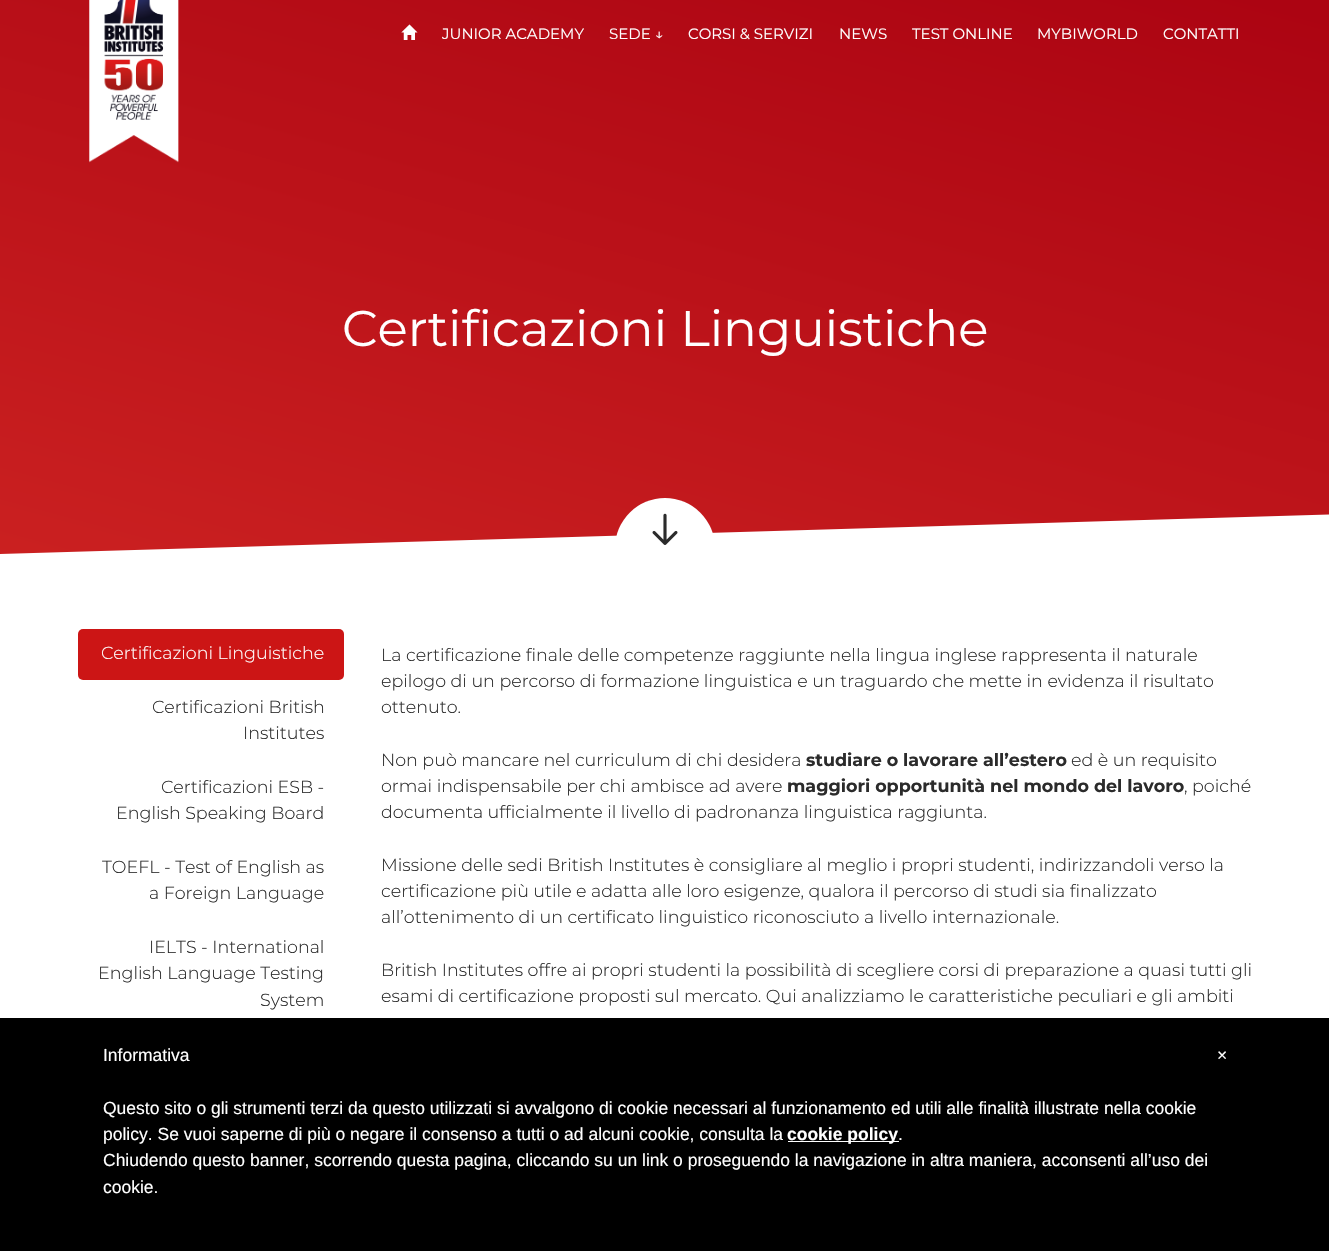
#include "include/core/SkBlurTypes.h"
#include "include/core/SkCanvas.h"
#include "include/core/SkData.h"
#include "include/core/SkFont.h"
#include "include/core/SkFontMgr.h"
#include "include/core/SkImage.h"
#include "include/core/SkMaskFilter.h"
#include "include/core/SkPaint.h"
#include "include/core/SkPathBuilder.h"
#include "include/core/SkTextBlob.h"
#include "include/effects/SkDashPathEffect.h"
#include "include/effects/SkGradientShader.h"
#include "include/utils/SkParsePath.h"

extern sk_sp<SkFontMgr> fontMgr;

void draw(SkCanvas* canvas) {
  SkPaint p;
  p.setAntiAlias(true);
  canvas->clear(SK_ColorWHITE);
  {
    const SkColor colors[] = {SkColorSetRGB(203, 33, 33), SkColorSetRGB(170, 2, 17)};
    const float stops[] = {0, 1};
    const SkPoint ends[] = {{542, 724}, {788, -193}};
    p.setShader(SkGradientShader::MakeLinear(ends, colors, stops, 2, SkTileMode::kClamp));
    p.setAlpha(255);
  }
  canvas->drawRect(SkRect::MakeLTRB(0, 0, 1329, 554), p);
  canvas->drawImageRect(SkImages::DeferredFromEncodedData(SkData::MakeFromFileName("images/1.png")), SkRect::MakeLTRB(89, 0, 179, 163), SkSamplingOptions());
  canvas->drawImageRect(SkImages::DeferredFromEncodedData(SkData::MakeFromFileName("images/2.png")), SkRect::MakeLTRB(401, 24, 418, 40), SkSamplingOptions());
  canvas->save();
  canvas->clipRect(SkRect::MakeLTRB(0, 0, 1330, 579));
  p.setShader(nullptr);
  p.setColor(SK_ColorWHITE);
  canvas->drawPath(SkPathBuilder().moveTo(-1, 554).lineTo(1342, 514).lineTo(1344, 602).lineTo(2, 642).close().detach(), p);
  canvas->drawCircle(665, 548, 50, p);
  canvas->restore();
  canvas->drawImageRect(SkImages::DeferredFromEncodedData(SkData::MakeFromFileName("images/3.png")), SkRect::MakeLTRB(652, 513, 678, 545), SkSamplingOptions());
  p.setColor(SkColorSetRGB(204, 21, 21));
  canvas->drawRoundRect(SkRect::MakeLTRB(78, 629, 344, 680), 5, 5, p);
  p.setColor(SK_ColorBLACK);
  canvas->drawRect(SkRect::MakeLTRB(0, 1018, 1329, 1251), p);
  p.setColor(SK_ColorWHITE);
  canvas->drawRect(SkRect::MakeLTRB(788, 1141, 899, 1142), p);
  SkFont font1(fontMgr->matchFamilyStyle("Montserrat", SkFontStyle::Normal()), 15);
  font1.setSubpixel(true);
  canvas->drawString("JUNIOR ACADEMY", 442, 39, font1, p);
  canvas->drawString("SEDE ↓", 609, 39, font1, p);
  canvas->drawString("CORSI & SERVIZI", 688, 39, font1, p);
  canvas->drawString("NEWS", 839, 39, font1, p);
  canvas->drawString("TEST ONLINE", 912, 39, font1, p);
  canvas->drawString("MYBIWORLD", 1037, 39, font1, p);
  canvas->drawString("CONTATTI", 1163, 39, font1, p);
  SkFont font2(fontMgr->matchFamilyStyle("Montserrat", SkFontStyle::Normal()), 50);
  font2.setSubpixel(true);
  canvas->drawString("Certificazioni Linguistiche", 342, 346, font2, p);
  SkFont font3(fontMgr->matchFamilyStyle("Montserrat", SkFontStyle(300, SkFontStyle::kNormal_Width, SkFontStyle::kUpright_Slant)), 17.5f);
  font3.setSubpixel(true);
  canvas->drawString("Certificazioni Linguistiche", 101, 659, font3, p);
  p.setColor(SkColorSetRGB(43, 43, 43));
  canvas->drawString("Certificazioni British", 152, 713, font3, p);
  canvas->drawString("Institutes", 243, 739, font3, p);
  canvas->drawString("Certificazioni ESB -", 161, 793, font3, p);
  canvas->drawString("English Speaking Board", 116, 819, font3, p);
  canvas->drawString("TOEFL - Test of English as", 102, 873, font3, p);
  canvas->drawString("a Foreign Language", 149, 899, font3, p);
  canvas->drawString("IELTS - International", 149, 953, font3, p);
  canvas->drawString("English Language Testing", 98, 979, font3, p);
  canvas->drawString("System", 260, 1006, font3, p);
  canvas->drawString("La certificazione finale delle competenze raggiunte nella lingua inglese rappresenta il naturale", 381, 661, font3, p);
  canvas->drawString("epilogo di un percorso di formazione linguistica e un traguardo che mette in evidenza il risultato", 381, 687, font3, p);
  canvas->drawString("ottenuto.", 381, 713, font3, p);
  canvas->drawString("Non può mancare nel curriculum di chi desidera", 381, 766, font3, p);
  SkFont font4(fontMgr->matchFamilyStyle("Montserrat", SkFontStyle::Bold()), 17.5f);
  font4.setSubpixel(true);
  canvas->drawString("studiare o lavorare all’estero", 806, 766, font4, p);
  canvas->drawString("ed è un requisito", 1071, 766, font3, p);
  canvas->drawString("ormai indispensabile per chi ambisce ad avere", 381, 792, font3, p);
  canvas->drawString("maggiori opportunità nel mondo del lavoro", 787, 792, font4, p);
  canvas->drawString(", poiché", 1184, 792, font3, p);
  canvas->drawString("documenta ufficialmente il livello di padronanza linguistica raggiunta.", 381, 818, font3, p);
  canvas->drawString("Missione delle sedi British Institutes è consigliare al meglio i propri studenti, indirizzandoli verso la", 381, 871, font3, p);
  canvas->drawString("certificazione più utile e adatta alle loro esigenze, qualora il percorso di studi sia finalizzato", 381, 897, font3, p);
  canvas->drawString("all’ottenimento di un certificato linguistico riconosciuto a livello internazionale.", 381, 923, font3, p);
  canvas->drawString("British Institutes offre ai propri studenti la possibilità di scegliere corsi di preparazione a quasi tutti gli", 381, 976, font3, p);
  canvas->drawString("esami di certificazione proposti sul mercato. Qui analizziamo le caratteristiche peculiari e gli ambiti", 381, 1002, font3, p);
  SkFont font5(fontMgr->matchFamilyStyle("Liberation Sans", SkFontStyle::Normal()), 17.5f);
  font5.setSubpixel(true);
  p.setColor(SK_ColorWHITE);
  canvas->drawString("Informativa", 103, 1061, font5, p);
  canvas->drawString("Questo sito o gli strumenti terzi da questo utilizzati si avvalgono di cookie necessari al funzionamento ed utili alle finalità illustrate nella cookie", 103, 1114, font5, p);
  canvas->drawString("policy. Se vuoi saperne di più o negare il consenso a tutti o ad alcuni cookie, consulta la", 103, 1140, font5, p);
  SkFont font6(fontMgr->matchFamilyStyle("Liberation Sans", SkFontStyle::Bold()), 17.5f);
  font6.setSubpixel(true);
  canvas->drawString("cookie policy", 787, 1140, font6, p);
  canvas->drawString(".", 898, 1140, font5, p);
  canvas->drawString("Chiudendo questo banner, scorrendo questa pagina, cliccando su un link o proseguendo la navigazione in altra maniera, acconsenti all’uso dei", 103, 1166, font5, p);
  canvas->drawString("cookie.", 103, 1193, font5, p);
  canvas->drawString("×", 1217, 1061, font5, p);
}
